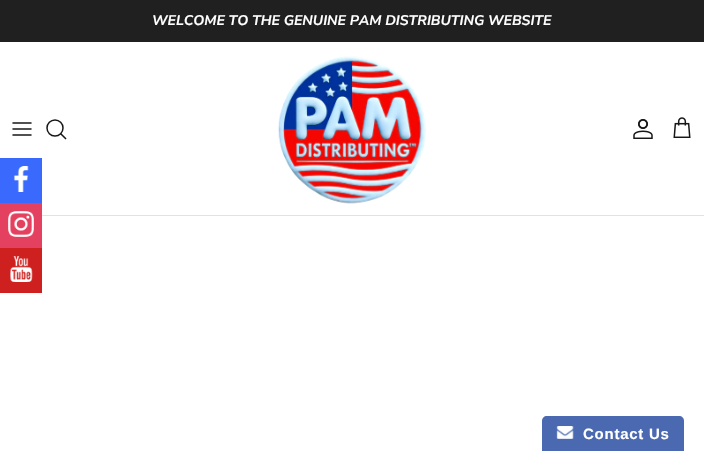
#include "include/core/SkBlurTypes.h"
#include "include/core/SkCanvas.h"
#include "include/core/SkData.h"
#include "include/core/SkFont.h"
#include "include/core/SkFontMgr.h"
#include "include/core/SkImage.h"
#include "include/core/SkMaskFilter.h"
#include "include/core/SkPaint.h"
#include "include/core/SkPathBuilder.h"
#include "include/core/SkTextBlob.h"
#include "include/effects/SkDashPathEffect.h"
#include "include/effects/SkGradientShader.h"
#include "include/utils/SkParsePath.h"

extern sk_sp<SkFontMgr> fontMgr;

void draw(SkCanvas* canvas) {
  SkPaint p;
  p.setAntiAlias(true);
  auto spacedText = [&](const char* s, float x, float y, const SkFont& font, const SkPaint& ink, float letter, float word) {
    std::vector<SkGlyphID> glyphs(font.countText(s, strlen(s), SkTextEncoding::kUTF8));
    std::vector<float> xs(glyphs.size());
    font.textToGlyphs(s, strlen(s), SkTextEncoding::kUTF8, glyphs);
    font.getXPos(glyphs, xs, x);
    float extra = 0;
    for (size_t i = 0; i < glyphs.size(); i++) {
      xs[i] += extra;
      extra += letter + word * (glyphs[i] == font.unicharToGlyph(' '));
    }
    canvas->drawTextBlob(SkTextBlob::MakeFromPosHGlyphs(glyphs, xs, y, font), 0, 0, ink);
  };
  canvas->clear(SK_ColorWHITE);
  p.setColor(SkColorSetRGB(32, 32, 32));
  canvas->drawRect(SkRect::MakeLTRB(0, 0, 704, 42), p);
  p.setColor(SkColorSetRGB(223, 227, 232));
  canvas->drawRect(SkRect::MakeLTRB(42, 215, 704, 216), p);
  p.setStyle(SkPaint::kStroke_Style);
  p.setStrokeWidth(1.5f);
  p.setStrokeCap(SkPaint::kRound_Cap);
  p.setStrokeJoin(SkPaint::kRound_Join);
  p.setColor(SkColorSetRGB(23, 23, 23));
  canvas->drawPath(SkPathBuilder().moveTo(13, 129).lineTo(31, 129).moveTo(13, 123).lineTo(31, 123).moveTo(13, 135).lineTo(31, 135).detach(), p);
  p.setStrokeCap(SkPaint::kButt_Cap);
  p.setStrokeJoin(SkPaint::kMiter_Join);
  canvas->drawCircle(55, 128, 8, p);
  p.setStrokeCap(SkPaint::kSquare_Cap);
  canvas->drawPath(SkPathBuilder().moveTo(61, 134).lineTo(65.5f, 138.5f).detach(), p);
  canvas->drawImageRect(SkImages::DeferredFromEncodedData(SkData::MakeFromFileName("images/1.png")), SkRect::MakeLTRB(278, 56, 426, 204), SkSamplingOptions());
  canvas->drawImageRect(SkImages::DeferredFromEncodedData(SkData::MakeFromFileName("images/2.png")), SkRect::MakeLTRB(633, 119, 653, 139), SkSamplingOptions());
  canvas->drawImageRect(SkImages::DeferredFromEncodedData(SkData::MakeFromFileName("images/3.png")), SkRect::MakeLTRB(673, 117, 691, 138), SkSamplingOptions());
  p.setStyle(SkPaint::kFill_Style);
  p.setColor(SkColorSetRGB(57, 105, 253));
  canvas->drawRect(SkRect::MakeLTRB(0, 158, 42, 203), p);
  canvas->drawImageRect(SkImages::DeferredFromEncodedData(SkData::MakeFromFileName("images/4.png")), SkRect::MakeLTRB(13, 166, 29, 192), SkSamplingOptions());
  p.setColor(SkColorSetRGB(228, 64, 95));
  canvas->drawRect(SkRect::MakeLTRB(0, 203, 42, 248), p);
  canvas->drawImageRect(SkImages::DeferredFromEncodedData(SkData::MakeFromFileName("images/5.png")), SkRect::MakeLTRB(8, 211, 34, 237), SkSamplingOptions());
  p.setColor(SkColorSetRGB(205, 32, 31));
  canvas->drawRect(SkRect::MakeLTRB(0, 248, 42, 293), p);
  canvas->drawImageRect(SkImages::DeferredFromEncodedData(SkData::MakeFromFileName("images/6.png")), SkRect::MakeLTRB(10, 256, 33, 282), SkSamplingOptions());
  p.setColor(SkColorSetRGB(74, 105, 177));
  canvas->drawPath(SkPathBuilder().moveTo(547, 416).lineTo(679, 416).cubicTo(682, 416, 684, 418, 684, 421).lineTo(684, 451).lineTo(542, 451).lineTo(542, 421).cubicTo(542, 418, 544, 416, 547, 416).close().detach(), p);
  canvas->drawImageRect(SkImages::DeferredFromEncodedData(SkData::MakeFromFileName("images/7.png")), SkRect::MakeLTRB(556, 426, 574, 439), SkSamplingOptions());
  SkFont font1(fontMgr->matchFamilyStyle("Nunito Sans", SkFontStyle::BoldItalic()), 14);
  font1.setSubpixel(true);
  p.setColor(SK_ColorWHITE);
  canvas->drawString("WELCOME TO THE GENUINE PAM DISTRIBUTING WEBSITE", 152, 25, font1, p);
  SkFont font2(fontMgr->matchFamilyStyle("Liberation Sans", SkFontStyle::Bold()), 15);
  font2.setSubpixel(true);
  spacedText("Contact Us", 583, 439, font2, p, 0.75f, 0);
}
